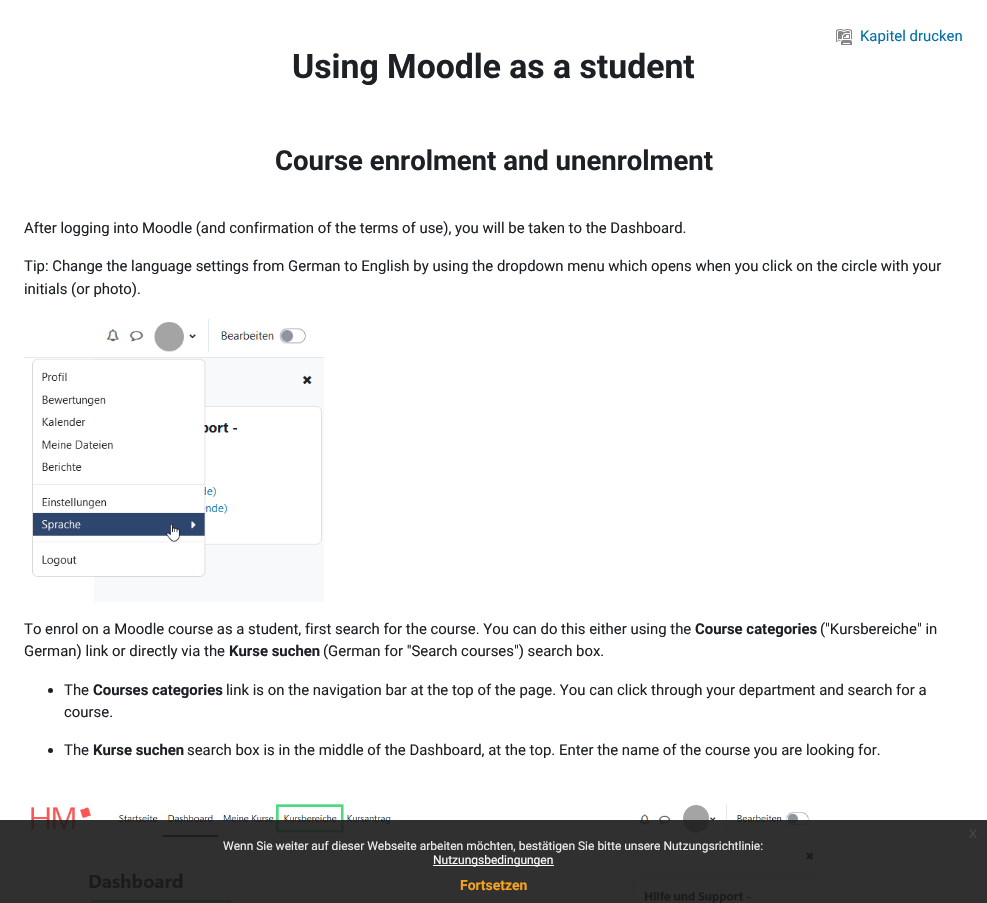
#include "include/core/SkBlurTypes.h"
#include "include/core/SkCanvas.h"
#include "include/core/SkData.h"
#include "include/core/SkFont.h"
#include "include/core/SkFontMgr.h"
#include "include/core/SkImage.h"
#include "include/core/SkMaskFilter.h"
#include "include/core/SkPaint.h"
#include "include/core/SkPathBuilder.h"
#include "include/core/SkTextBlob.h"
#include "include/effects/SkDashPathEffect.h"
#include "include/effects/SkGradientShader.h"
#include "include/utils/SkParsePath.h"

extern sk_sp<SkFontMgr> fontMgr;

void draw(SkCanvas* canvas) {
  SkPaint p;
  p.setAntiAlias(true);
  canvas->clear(SK_ColorWHITE);
  canvas->drawImageRect(SkImages::DeferredFromEncodedData(SkData::MakeFromFileName("images/1.png")), SkRect::MakeLTRB(836, 29, 852, 45), SkSamplingOptions());
  canvas->drawImageRect(SkImages::DeferredFromEncodedData(SkData::MakeFromFileName("images/2.png")), SkRect::MakeLTRB(24, 319, 324, 602), SkSamplingOptions());
  p.setColor(SkColorSetRGB(29, 33, 37));
  canvas->drawCircle(50.5f, 690.5f, 2.5f, p);
  canvas->drawCircle(50.5f, 750.5f, 2.5f, p);
  canvas->drawImageRect(SkImages::DeferredFromEncodedData(SkData::MakeFromFileName("images/3.png")), SkRect::MakeLTRB(24, 804, 824, 903), SkSamplingOptions());
  p.setColor(SkColorSetARGB(230, 25, 25, 25));
  canvas->drawRect(SkRect::MakeLTRB(0, 820, 987, 903), p);
  p.setColor(SK_ColorWHITE);
  canvas->drawRect(SkRect::MakeLTRB(433, 865, 554, 866), p);
  SkFont font1(fontMgr->matchFamilyStyle("Roboto", SkFontStyle::Normal()), 14.9f);
  font1.setSubpixel(true);
  p.setColor(SkColorSetRGB(0, 112, 168));
  canvas->drawString("Kapitel drucken", 860, 41, font1, p);
  SkFont font2(fontMgr->matchFamilyStyle("Roboto", SkFontStyle::Bold()), 33.75f);
  font2.setSubpixel(true);
  p.setColor(SkColorSetRGB(29, 33, 37));
  canvas->drawString("Using Moodle as a student", 292, 78, font2, p);
  SkFont font3(fontMgr->matchFamilyStyle("Roboto", SkFontStyle::Bold()), 27.5f);
  font3.setSubpixel(true);
  canvas->drawString("Course enrolment and unenrolment", 275, 170, font3, p);
  canvas->drawString("After logging into Moodle (and confirmation of the terms of use), you will be taken to the Dashboard.", 24, 233, font1, p);
  canvas->drawString("Tip: Change the language settings from German to English by using the dropdown menu which opens when you click on the circle with your", 24, 271, font1, p);
  canvas->drawString("initials (or photo).", 24, 294, font1, p);
  canvas->drawString("To enrol on a Moodle course as a student, first search for the course. You can do this either using the", 24, 634, font1, p);
  SkFont font4(fontMgr->matchFamilyStyle("Roboto", SkFontStyle::Bold()), 14.9f);
  font4.setSubpixel(true);
  canvas->drawString("Course categories", 695, 634, font4, p);
  canvas->drawString("(\"Kursbereiche\" in", 820, 634, font1, p);
  canvas->drawString("German) link or directly via the", 24, 656, font1, p);
  canvas->drawString("Kurse suchen", 229, 656, font4, p);
  canvas->drawString("(German for \"Search courses\") search box.", 323, 656, font1, p);
  canvas->drawString("The", 64, 695, font1, p);
  canvas->drawString("Courses categories", 93, 695, font4, p);
  canvas->drawString("link is on the navigation bar at the top of the page. You can click through your department and search for a", 226, 695, font1, p);
  canvas->drawString("course.", 64, 717, font1, p);
  canvas->drawString("The", 64, 755, font1, p);
  canvas->drawString("Kurse suchen", 93, 755, font4, p);
  canvas->drawString("search box is in the middle of the Dashboard, at the top. Enter the name of the course you are looking for.", 187, 755, font1, p);
  SkFont font5(fontMgr->matchFamilyStyle("Liberation Sans", SkFontStyle::Normal()), 16);
  font5.setSubpixel(true);
  p.setColor(SkColorSetRGB(71, 71, 71));
  canvas->drawString("x", 969, 838, font5, p);
  SkFont font6(fontMgr->matchFamilyStyle("Roboto", SkFontStyle::Normal()), 12);
  font6.setSubpixel(true);
  p.setColor(SkColorSetRGB(239, 239, 239));
  canvas->drawString("Wenn Sie weiter auf dieser Webseite arbeiten möchten, bestätigen Sie bitte unsere Nutzungsrichtlinie:", 223, 850, font6, p);
  p.setColor(SK_ColorWHITE);
  canvas->drawString("Nutzungsbedingungen", 433, 864, font6, p);
  SkFont font7(fontMgr->matchFamilyStyle("Roboto", SkFontStyle::Bold()), 14);
  font7.setSubpixel(true);
  p.setColor(SkColorSetRGB(246, 162, 29));
  canvas->drawString("Fortsetzen", 460, 890, font7, p);
}
